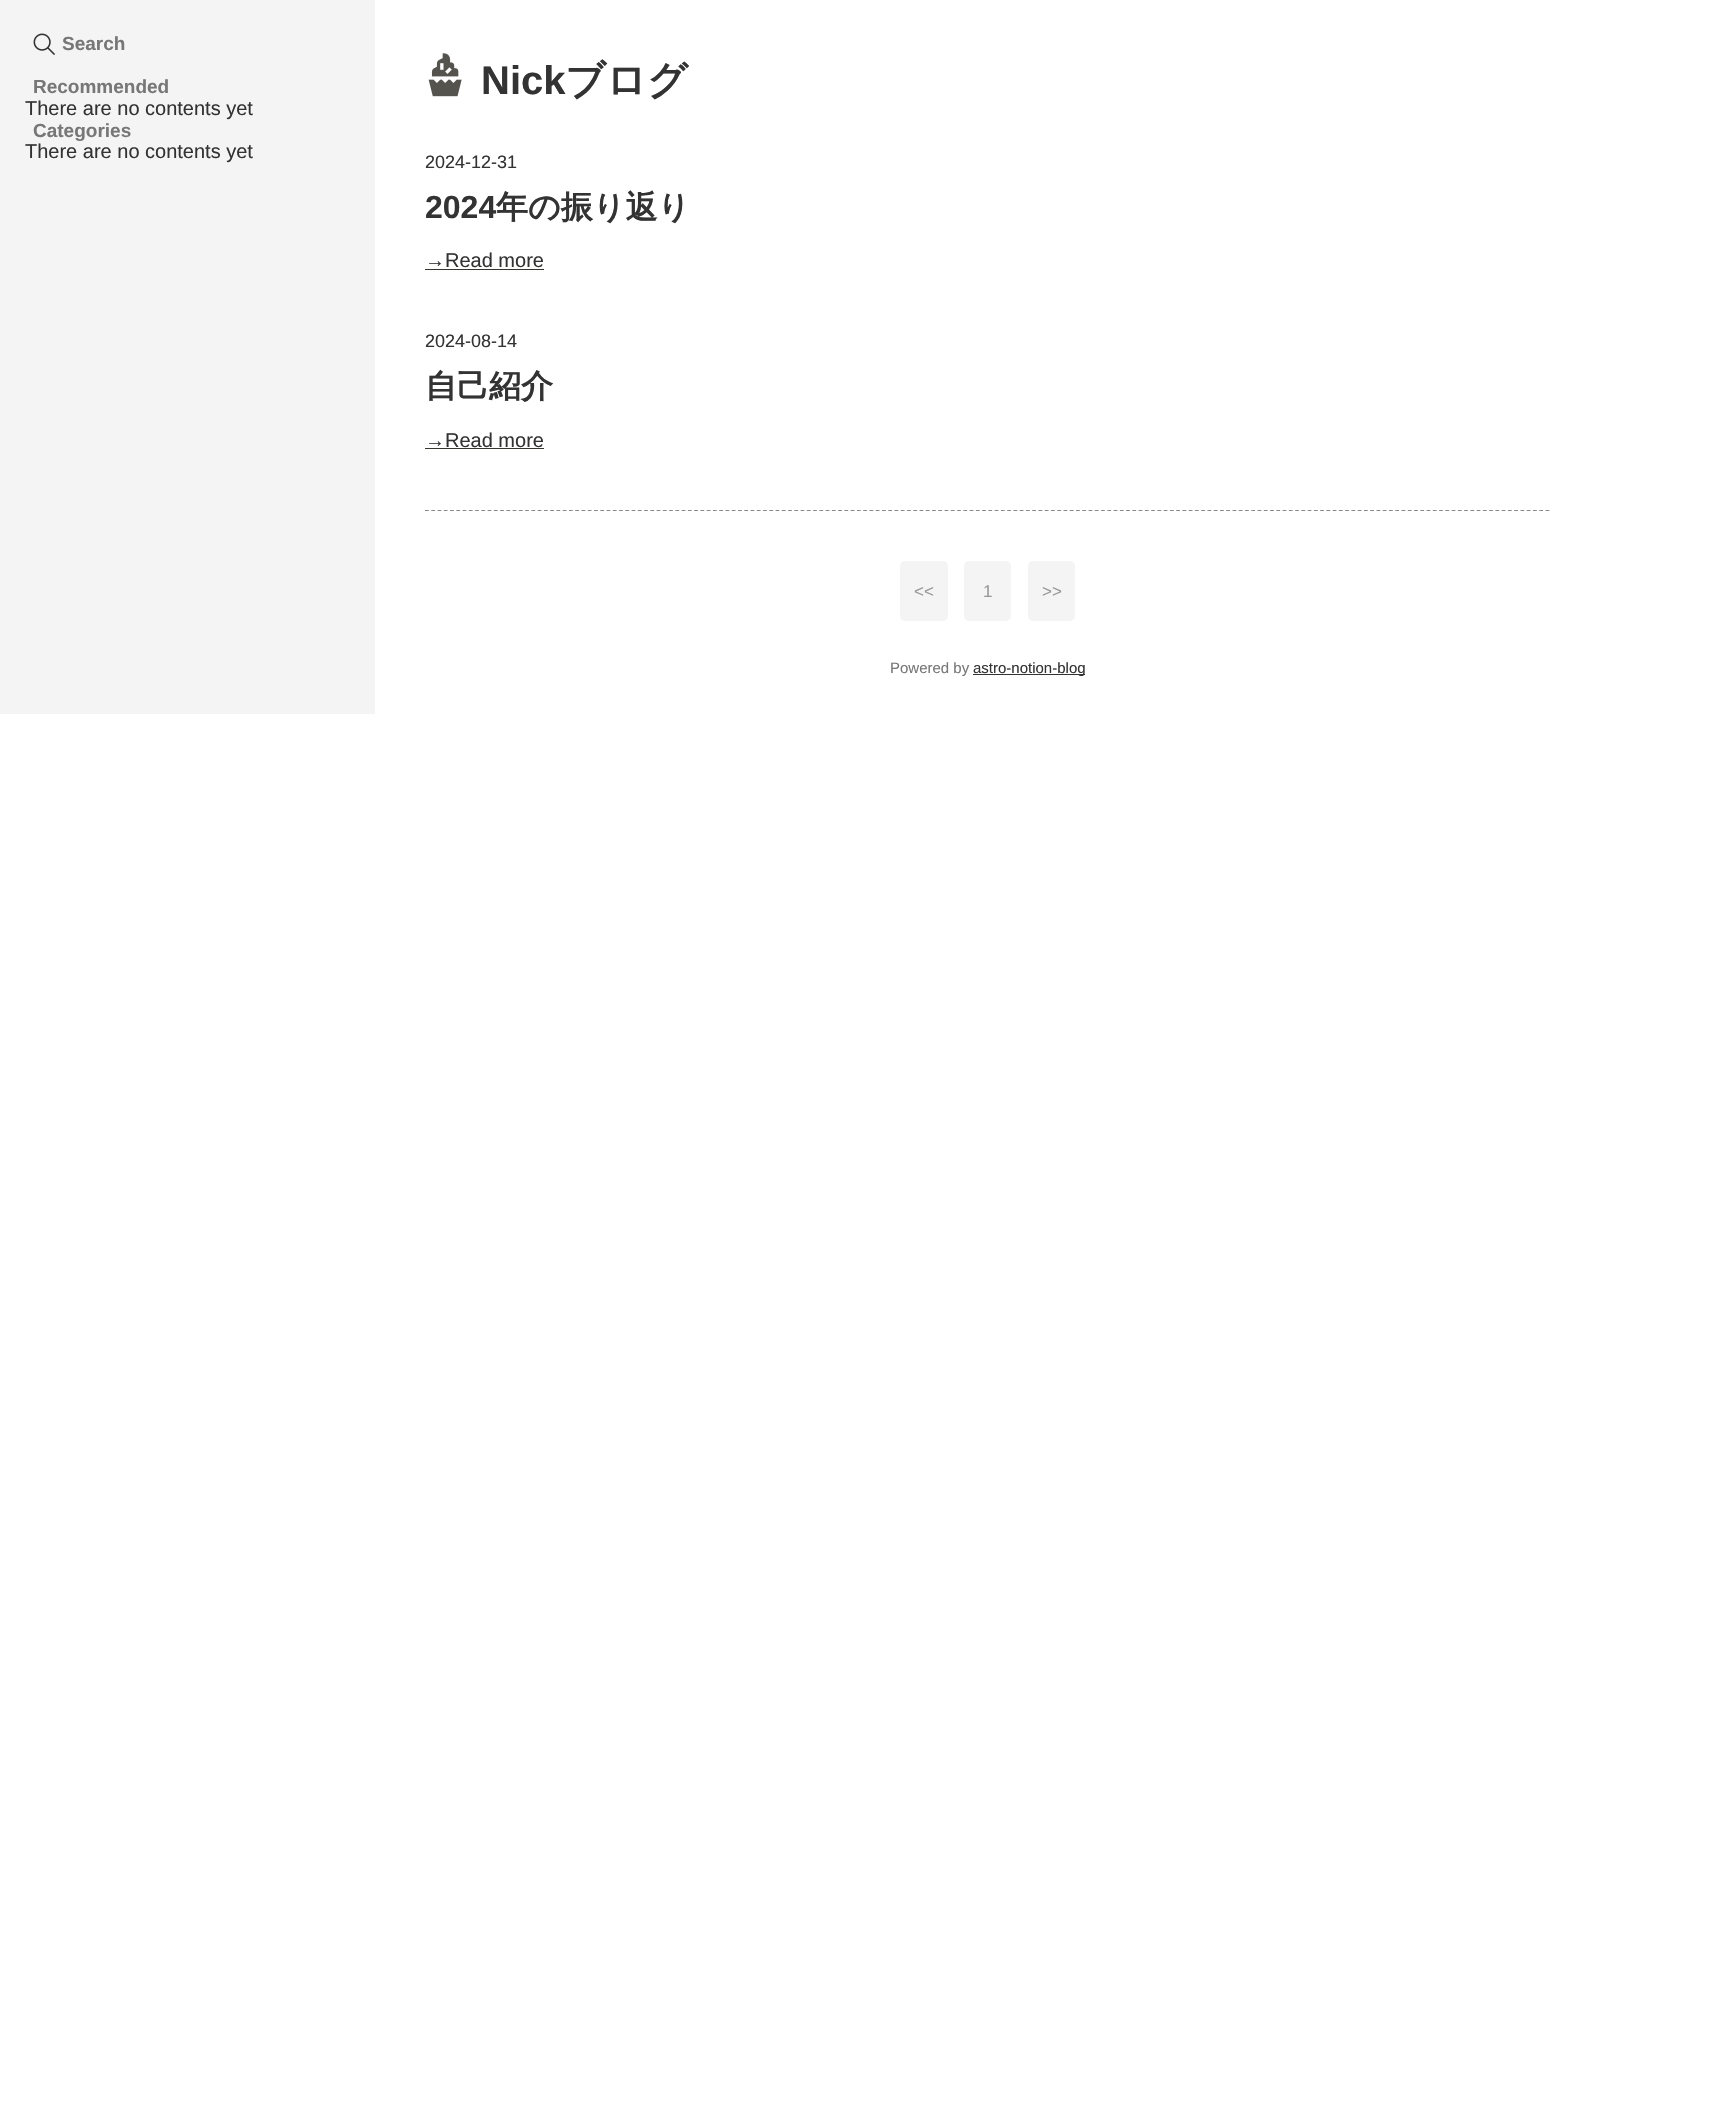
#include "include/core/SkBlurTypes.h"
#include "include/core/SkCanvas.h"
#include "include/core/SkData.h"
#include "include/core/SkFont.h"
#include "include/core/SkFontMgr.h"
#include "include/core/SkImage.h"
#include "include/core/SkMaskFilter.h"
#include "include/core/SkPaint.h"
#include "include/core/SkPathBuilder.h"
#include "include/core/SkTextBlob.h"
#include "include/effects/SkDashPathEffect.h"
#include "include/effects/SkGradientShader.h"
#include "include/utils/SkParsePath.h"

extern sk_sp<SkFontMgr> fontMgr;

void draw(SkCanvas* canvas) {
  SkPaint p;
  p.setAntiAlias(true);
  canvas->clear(SK_ColorWHITE);
  p.setColor(SkColorSetRGB(244, 244, 244));
  canvas->drawRect(SkRect::MakeLTRB(0, 0, 375, 714), p);
  canvas->drawImageRect(SkImages::DeferredFromEncodedData(SkData::MakeFromFileName("images/1.png")), SkRect::MakeLTRB(33, 33, 55, 55), SkSamplingOptions());
  canvas->drawImageRect(SkImages::DeferredFromEncodedData(SkData::MakeFromFileName("images/2.png")), SkRect::MakeLTRB(428, 53, 462, 97), SkSamplingOptions());
  p.setColor(SkColorSetRGB(55, 53, 47));
  canvas->drawRect(SkRect::MakeLTRB(425, 269, 544, 270), p);
  canvas->drawRect(SkRect::MakeLTRB(425, 448, 544, 449), p);
  p.setStyle(SkPaint::kStroke_Style);
  p.setStrokeWidth(1.2f);
  p.setColor(SkColorSetRGB(136, 136, 136));
  p.setPathEffect(SkDashPathEffect::Make({{3.75f, 2.51f}}, 0));
  canvas->drawPath(SkPathBuilder().moveTo(425, 510.5f).lineTo(1550, 510.5f).detach(), p);
  p.setPathEffect(nullptr);
  p.setStyle(SkPaint::kFill_Style);
  p.setColor(SkColorSetRGB(244, 244, 244));
  canvas->drawRoundRect(SkRect::MakeLTRB(900, 561, 948, 621), 5, 5, p);
  canvas->drawRoundRect(SkRect::MakeLTRB(964, 561, 1011, 621), 5, 5, p);
  canvas->drawRoundRect(SkRect::MakeLTRB(1028, 561, 1075, 621), 5, 5, p);
  p.setColor(SkColorSetRGB(51, 51, 51));
  canvas->drawRect(SkRect::MakeLTRB(973, 674, 1085, 675), p);
  SkFont font1(fontMgr->matchFamilyStyle("Liberation Sans", SkFontStyle::Bold()), 19);
  font1.setSubpixel(true);
  p.setColor(SkColorSetRGB(119, 119, 119));
  canvas->drawString("Search", 62, 50, font1, p);
  canvas->drawString("Recommended", 33, 93, font1, p);
  SkFont font2(fontMgr->matchFamilyStyle("Liberation Sans", SkFontStyle::Normal()), 20);
  font2.setSubpixel(true);
  p.setColor(SkColorSetRGB(51, 51, 51));
  canvas->drawString("There are no contents yet", 25, 115, font2, p);
  p.setColor(SkColorSetRGB(119, 119, 119));
  canvas->drawString("Categories", 33, 137, font1, p);
  p.setColor(SkColorSetRGB(51, 51, 51));
  canvas->drawString("There are no contents yet", 25, 158, font2, p);
  SkFont font3(fontMgr->matchFamilyStyle("Liberation Sans", SkFontStyle::Bold()), 40);
  font3.setSubpixel(true);
  canvas->drawString("Nick", 481, 94, font3, p);
  SkFont font4(fontMgr->matchFamilyStyle("WenQuanYi Zen Hei", SkFontStyle::Bold()), 40);
  font4.setSubpixel(true);
  canvas->drawString("ブログ", 565, 94, font4, p);
  SkFont font5(fontMgr->matchFamilyStyle("Liberation Sans", SkFontStyle::Normal()), 18);
  font5.setSubpixel(true);
  canvas->drawString("2024-12-31", 425, 168, font5, p);
  SkFont font6(fontMgr->matchFamilyStyle("Liberation Sans", SkFontStyle::Bold()), 32);
  font6.setSubpixel(true);
  canvas->drawString("2024", 425, 218, font6, p);
  SkFont font7(fontMgr->matchFamilyStyle("WenQuanYi Zen Hei", SkFontStyle::Bold()), 32);
  font7.setSubpixel(true);
  canvas->drawString("年の振り返り", 496, 218, font7, p);
  canvas->drawString("→Read more", 425, 267, font2, p);
  canvas->drawString("2024-08-14", 425, 347, font5, p);
  canvas->drawString("自己紹介", 425, 397, font7, p);
  canvas->drawString("→Read more", 425, 447, font2, p);
  SkFont font8(fontMgr->matchFamilyStyle("Liberation Sans", SkFontStyle::Normal()), 17);
  font8.setSubpixel(true);
  p.setColor(SkColorSetRGB(153, 153, 153));
  canvas->drawString("<<", 914, 597, font8, p);
  canvas->drawString("1", 983, 597, font8, p);
  canvas->drawString(">>", 1042, 597, font8, p);
  SkFont font9(fontMgr->matchFamilyStyle("Liberation Sans", SkFontStyle::Normal()), 15);
  font9.setSubpixel(true);
  p.setColor(SkColorSetRGB(119, 119, 119));
  canvas->drawString("Powered by", 890, 673, font9, p);
  p.setColor(SkColorSetRGB(51, 51, 51));
  canvas->drawString("astro-notion-blog", 973, 673, font9, p);
}
